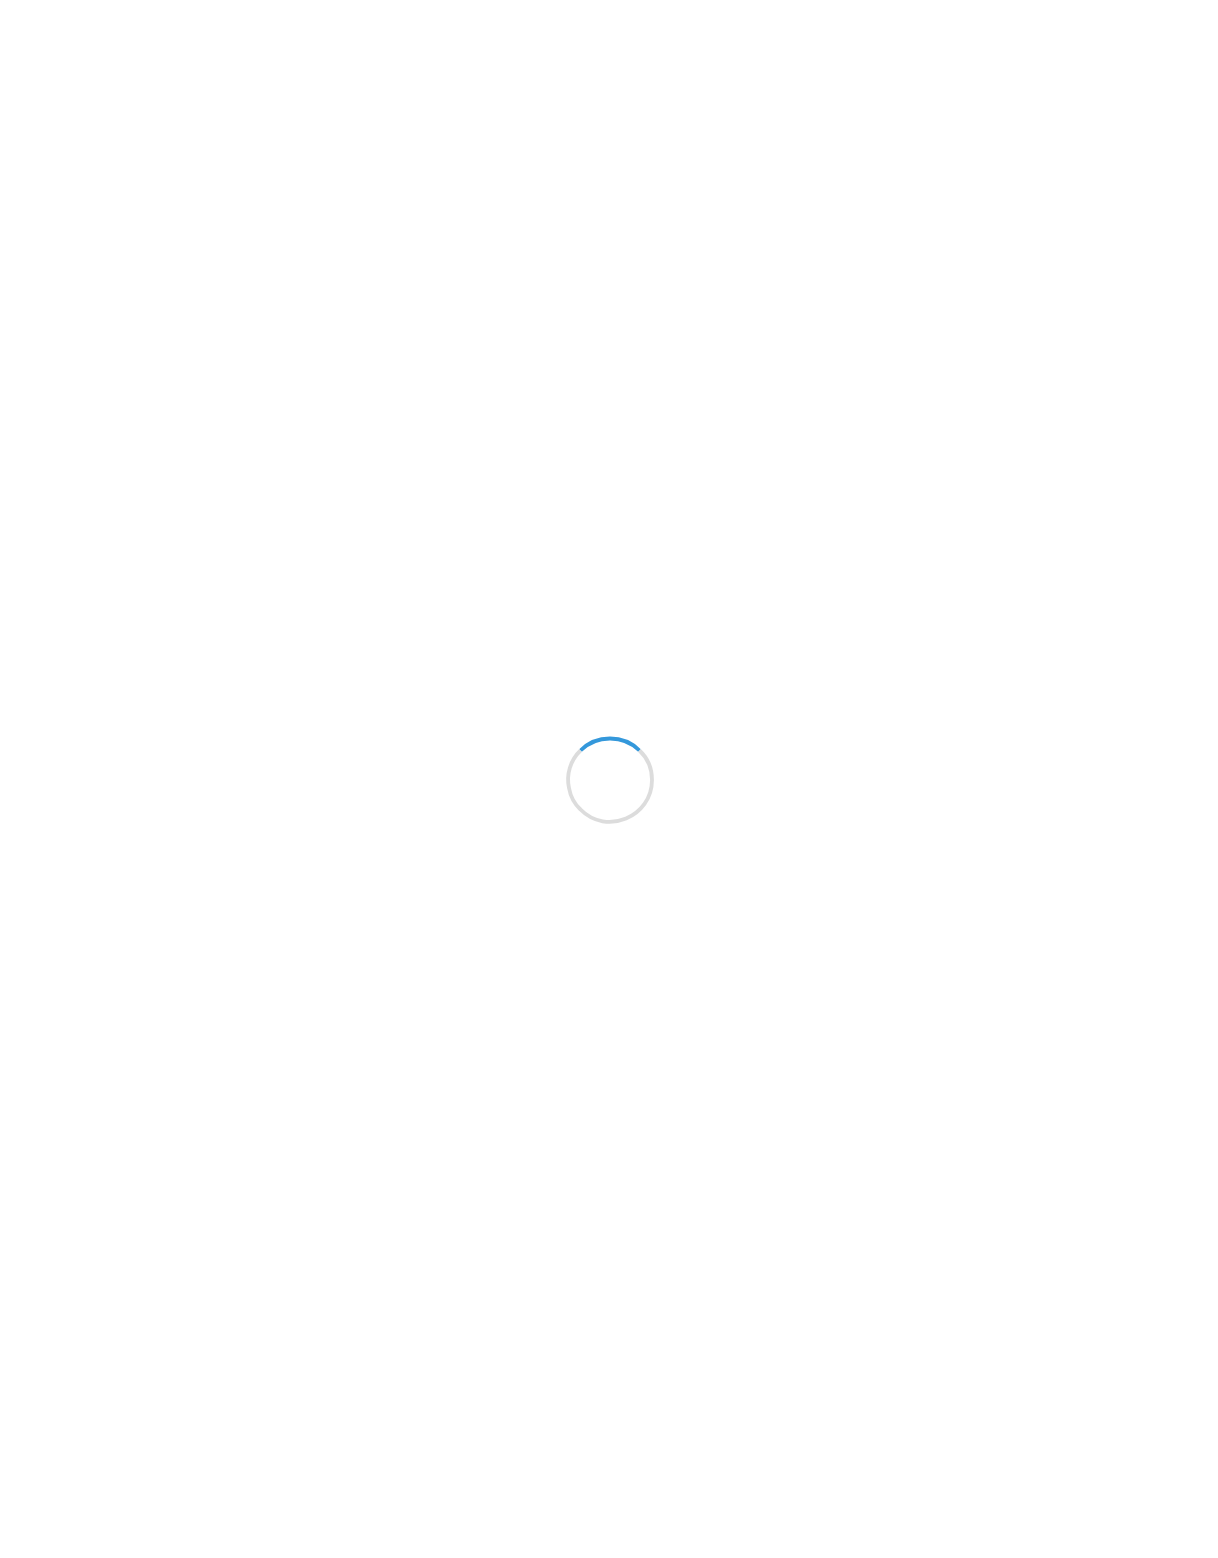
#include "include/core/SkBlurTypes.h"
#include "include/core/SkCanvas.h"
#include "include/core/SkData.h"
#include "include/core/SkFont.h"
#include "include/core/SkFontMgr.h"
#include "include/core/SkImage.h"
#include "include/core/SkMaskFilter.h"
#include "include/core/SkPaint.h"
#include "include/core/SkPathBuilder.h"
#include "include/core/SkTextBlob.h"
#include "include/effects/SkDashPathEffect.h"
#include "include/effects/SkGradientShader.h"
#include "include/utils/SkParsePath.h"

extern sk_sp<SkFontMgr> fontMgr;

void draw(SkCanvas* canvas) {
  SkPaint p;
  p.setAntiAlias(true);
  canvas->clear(SK_ColorWHITE);
  p.setStyle(SkPaint::kStroke_Style);
  p.setStrokeWidth(3.8f);
  p.setColor(SkColorSetRGB(52, 152, 219));
  canvas->drawPath(SkPathBuilder().moveTo(580.5f, 750.5f).cubicTo(596.5f, 734.5f, 623.5f, 734.5f, 639.5f, 750.5f).detach(), p);
  p.setColor(SkColorSetRGB(220, 220, 220));
  canvas->drawPath(SkPathBuilder().moveTo(639.5f, 750.5f).cubicTo(647.5f, 758, 652, 769, 652, 780).cubicTo(652, 817, 606.5f, 836, 580.5f, 809.5f).cubicTo(574.5f, 804, 570.5f, 796.5f, 569, 788).cubicTo(566, 774.5f, 570.5f, 760, 580.5f, 750.5f).detach(), p);
}
